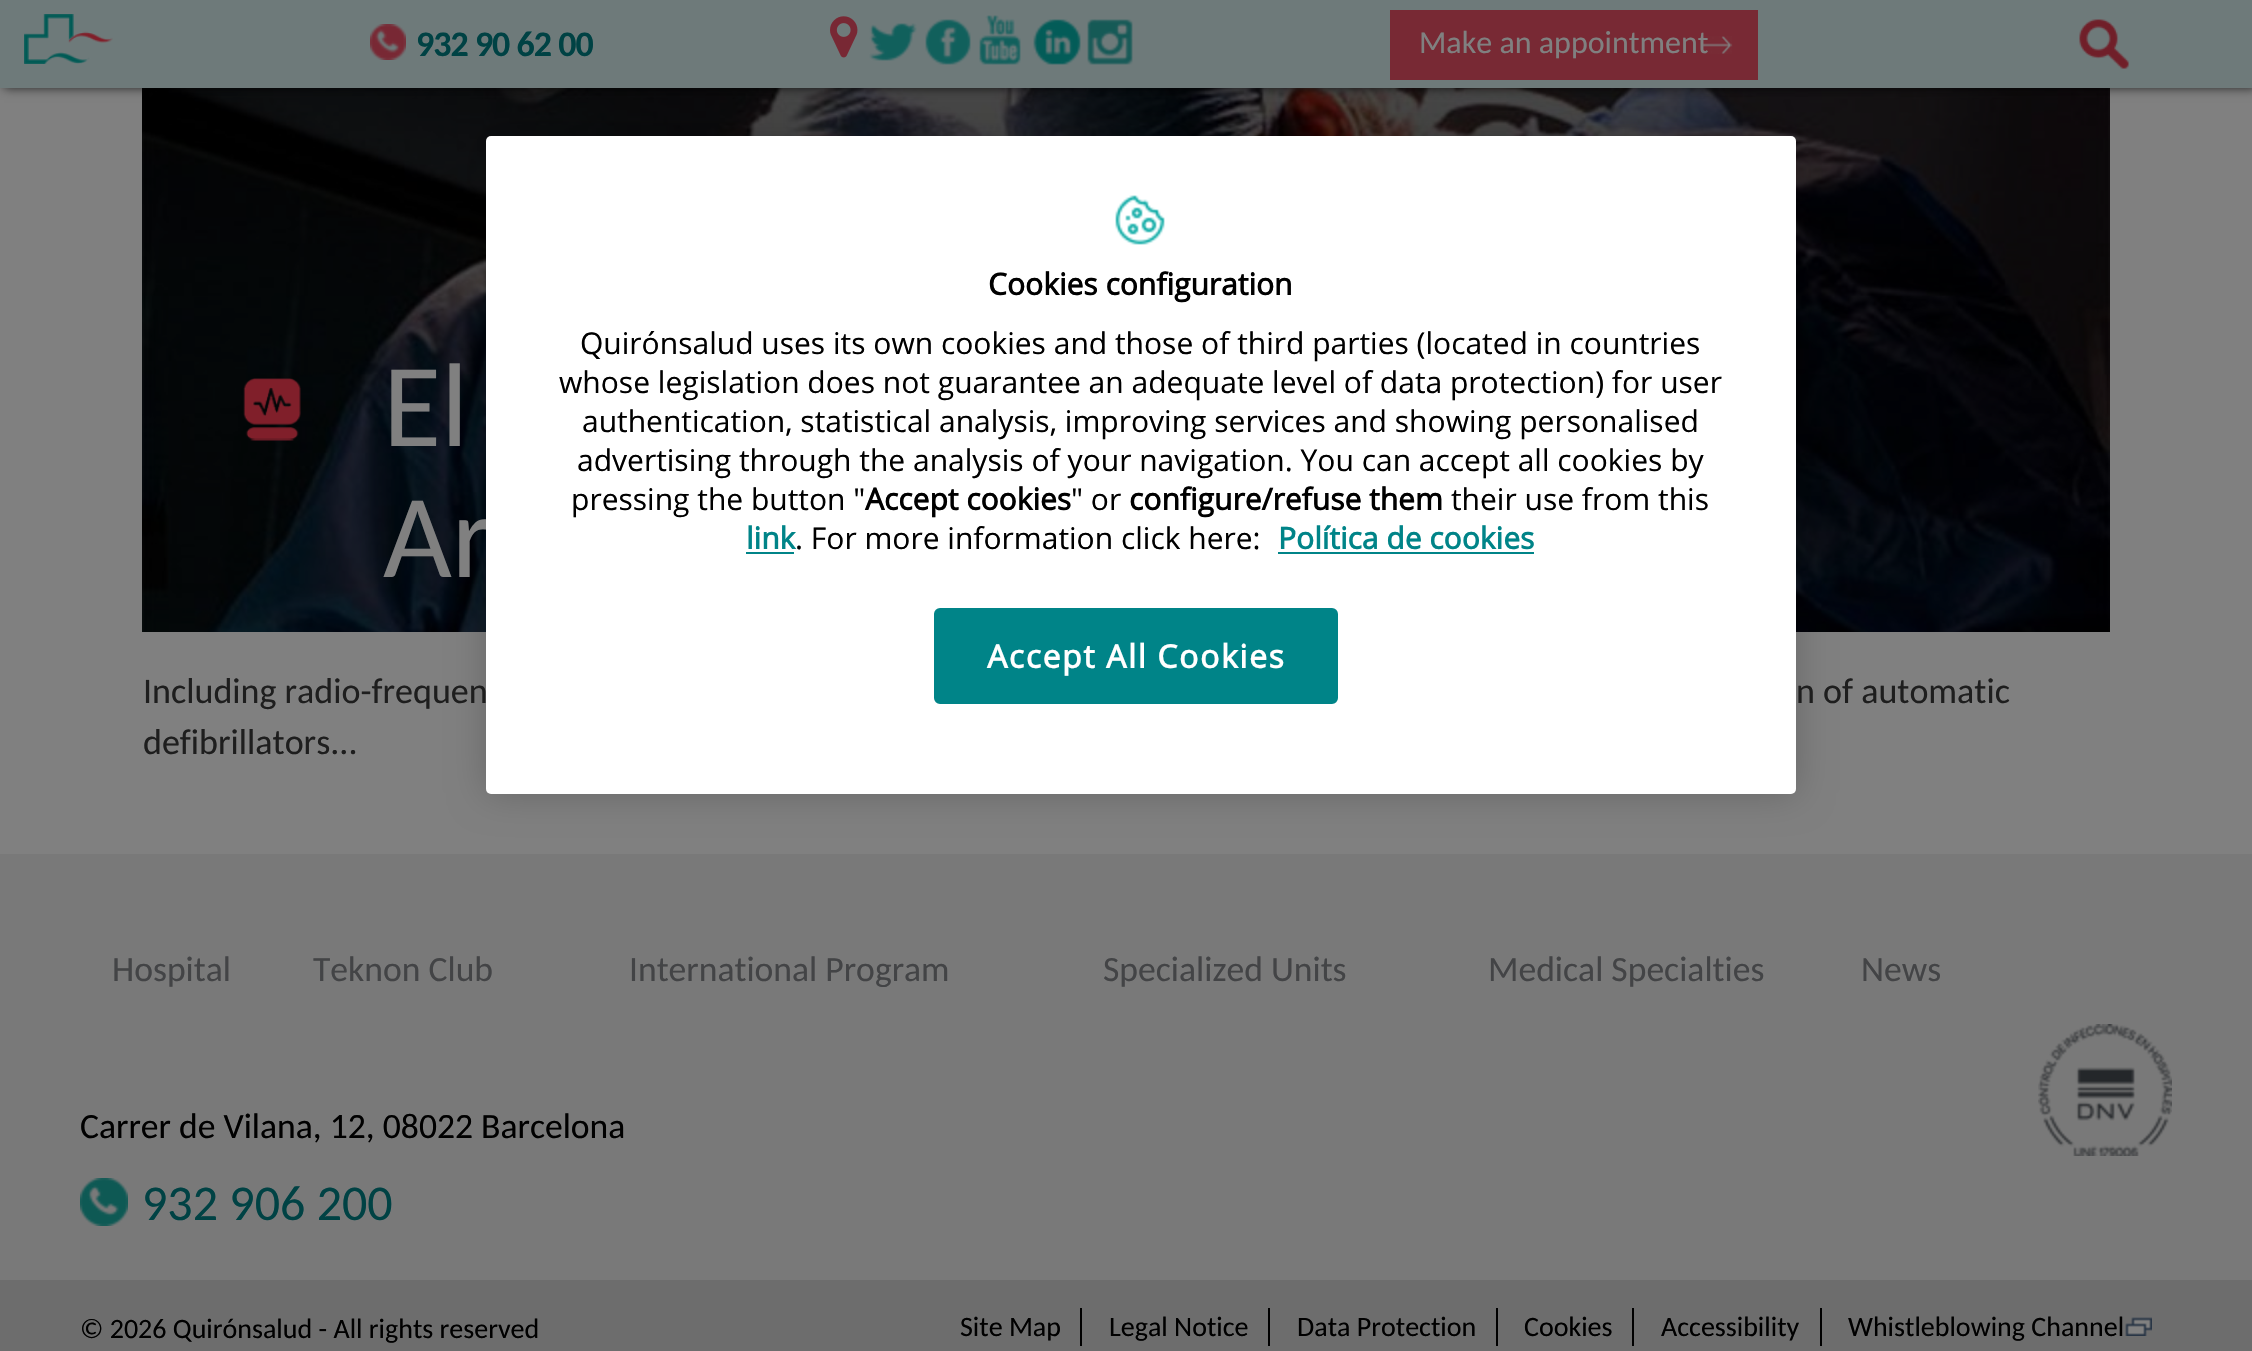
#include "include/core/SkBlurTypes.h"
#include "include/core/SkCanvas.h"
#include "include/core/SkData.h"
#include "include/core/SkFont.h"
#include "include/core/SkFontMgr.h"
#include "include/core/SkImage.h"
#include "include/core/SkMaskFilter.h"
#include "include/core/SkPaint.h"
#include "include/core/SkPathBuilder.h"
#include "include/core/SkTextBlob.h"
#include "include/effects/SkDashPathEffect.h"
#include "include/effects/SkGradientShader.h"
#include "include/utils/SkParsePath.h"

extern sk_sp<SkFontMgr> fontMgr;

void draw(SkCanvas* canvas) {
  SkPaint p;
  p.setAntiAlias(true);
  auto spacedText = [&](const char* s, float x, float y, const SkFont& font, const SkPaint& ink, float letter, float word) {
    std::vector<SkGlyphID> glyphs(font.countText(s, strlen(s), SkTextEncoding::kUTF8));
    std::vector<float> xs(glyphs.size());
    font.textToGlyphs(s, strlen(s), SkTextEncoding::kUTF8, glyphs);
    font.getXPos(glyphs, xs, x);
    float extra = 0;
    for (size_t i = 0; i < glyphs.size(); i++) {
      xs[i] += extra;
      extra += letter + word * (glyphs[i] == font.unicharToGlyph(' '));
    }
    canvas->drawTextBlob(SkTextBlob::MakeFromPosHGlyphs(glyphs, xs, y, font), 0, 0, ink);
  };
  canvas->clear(SkColorSetRGB(128, 128, 128));
  canvas->drawImageRect(SkImages::DeferredFromEncodedData(SkData::MakeFromFileName("images/11.png")), SkRect::MakeLTRB(142, 88, 2110, 632), SkSamplingOptions());
  p.setColor(SkColorSetARGB(179, 0, 0, 0));
  p.setMaskFilter(SkMaskFilter::MakeBlur(kNormal_SkBlurStyle, 5));
  canvas->drawRect(SkRect::MakeLTRB(4, 0, 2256, 88), p);
  p.setMaskFilter(nullptr);
  p.setColor(SkColorSetRGB(110, 122, 122));
  canvas->drawRect(SkRect::MakeLTRB(0, 0, 2252, 88), p);
  canvas->drawImageRect(SkImages::DeferredFromEncodedData(SkData::MakeFromFileName("images/1.png")), SkRect::MakeLTRB(24, 14, 113, 64), SkSamplingOptions());
  canvas->drawImageRect(SkImages::DeferredFromEncodedData(SkData::MakeFromFileName("images/2.png")), SkRect::MakeLTRB(370, 24, 406, 60), SkSamplingOptions());
  canvas->drawImageRect(SkImages::DeferredFromEncodedData(SkData::MakeFromFileName("images/3.png")), SkRect::MakeLTRB(830, 16, 858, 58), SkSamplingOptions());
  canvas->drawImageRect(SkImages::DeferredFromEncodedData(SkData::MakeFromFileName("images/4.png")), SkRect::MakeLTRB(869, 23, 917, 61), SkSamplingOptions());
  canvas->drawImageRect(SkImages::DeferredFromEncodedData(SkData::MakeFromFileName("images/5.png")), SkRect::MakeLTRB(925, 19, 971, 65), SkSamplingOptions());
  canvas->drawImageRect(SkImages::DeferredFromEncodedData(SkData::MakeFromFileName("images/6.png")), SkRect::MakeLTRB(979, 15, 1021, 65), SkSamplingOptions());
  canvas->drawImageRect(SkImages::DeferredFromEncodedData(SkData::MakeFromFileName("images/7.png")), SkRect::MakeLTRB(1033, 19, 1081, 65), SkSamplingOptions());
  canvas->drawImageRect(SkImages::DeferredFromEncodedData(SkData::MakeFromFileName("images/8.png")), SkRect::MakeLTRB(1087, 19, 1133, 65), SkSamplingOptions());
  p.setColor(SkColorSetRGB(120, 41, 52));
  canvas->drawRect(SkRect::MakeLTRB(1390, 10, 1758, 80), p);
  canvas->drawImageRect(SkImages::DeferredFromEncodedData(SkData::MakeFromFileName("images/9.png")), SkRect::MakeLTRB(1702, 36, 1733, 54), SkSamplingOptions());
  canvas->drawImageRect(SkImages::DeferredFromEncodedData(SkData::MakeFromFileName("images/10.png")), SkRect::MakeLTRB(2079, 19, 2129, 69), SkSamplingOptions());
  canvas->drawImageRect(SkImages::DeferredFromEncodedData(SkData::MakeFromFileName("images/12.png")), SkRect::MakeLTRB(243, 378, 301, 441), SkSamplingOptions());
  p.setColor(SkColorSetRGB(121, 121, 121));
  canvas->drawRect(SkRect::MakeLTRB(0, 854, 2252, 1280), p);
  canvas->drawImageRect(SkImages::DeferredFromEncodedData(SkData::MakeFromFileName("images/13.png")), SkRect::MakeLTRB(2038, 1024, 2172, 1156), SkSamplingOptions());
  canvas->drawImageRect(SkImages::DeferredFromEncodedData(SkData::MakeFromFileName("images/14.png")), SkRect::MakeLTRB(80, 1178, 128, 1226), SkSamplingOptions());
  p.setColor(SkColorSetRGB(109, 109, 109));
  canvas->drawRect(SkRect::MakeLTRB(0, 1280, 2252, 1351), p);
  p.setColor(SK_ColorBLACK);
  canvas->drawRect(SkRect::MakeLTRB(1080, 1308, 1082, 1346), p);
  canvas->drawRect(SkRect::MakeLTRB(1268, 1308, 1270, 1346), p);
  canvas->drawRect(SkRect::MakeLTRB(1496, 1308, 1498, 1346), p);
  canvas->drawRect(SkRect::MakeLTRB(1632, 1308, 1634, 1346), p);
  canvas->drawRect(SkRect::MakeLTRB(1820, 1308, 1822, 1346), p);
  canvas->drawImageRect(SkImages::DeferredFromEncodedData(SkData::MakeFromFileName("images/15.png")), SkRect::MakeLTRB(2125, 1317, 2152, 1336), SkSamplingOptions());
  p.setColor(SkColorSetARGB(51, 0, 0, 0));
  p.setMaskFilter(SkMaskFilter::MakeBlur(kNormal_SkBlurStyle, 18));
  canvas->drawRoundRect(SkRect::MakeLTRB(486, 136, 1796, 794), 5, 5, p);
  p.setMaskFilter(nullptr);
  SkFont font1(fontMgr->matchFamilyStyle("Carlito", SkFontStyle::Bold()), 36);
  font1.setSubpixel(true);
  p.setColor(SkColorSetRGB(0, 66, 68));
  spacedText("932 90 62 00", 416, 56, font1, p, -1, 0);
  SkFont font2(fontMgr->matchFamilyStyle("Carlito", SkFontStyle::Normal()), 32);
  font2.setSubpixel(true);
  p.setColor(SkColorSetRGB(128, 128, 128));
  canvas->drawString("Make an appointment", 1419, 53, font2, p);
  SkFont font3(fontMgr->matchFamilyStyle("Carlito", SkFontStyle::Normal()), 119);
  font3.setSubpixel(true);
  canvas->drawString("El", 383, 446, font3, p);
  canvas->drawString("Ar", 383, 577, font3, p);
  SkFont font4(fontMgr->matchFamilyStyle("Carlito", SkFontStyle::Normal()), 36);
  font4.setSubpixel(true);
  p.setColor(SkColorSetRGB(30, 30, 30));
  canvas->drawString("Including radio-frequen", 143, 703, font4, p);
  canvas->drawString("n of automatic", 1796, 703, font4, p);
  canvas->drawString("defibrillators...", 143, 754, font4, p);
  SkFont font5(fontMgr->matchFamilyStyle("Carlito", SkFontStyle::Normal()), 35.6f);
  font5.setSubpixel(true);
  p.setColor(SkColorSetRGB(67, 68, 70));
  canvas->drawString("Hospital", 112, 981, font5, p);
  canvas->drawString("Teknon Club", 313, 981, font5, p);
  canvas->drawString("International Program", 629, 981, font5, p);
  canvas->drawString("Specialized Units", 1103, 981, font5, p);
  canvas->drawString("Medical Specialties", 1488, 981, font5, p);
  canvas->drawString("News", 1861, 981, font5, p);
  p.setColor(SK_ColorBLACK);
  canvas->drawString("Carrer de Vilana, 12, 08022 Barcelona", 80, 1138, font5, p);
  SkFont font6(fontMgr->matchFamilyStyle("Carlito", SkFontStyle::Normal()), 50);
  font6.setSubpixel(true);
  p.setColor(SkColorSetRGB(0, 66, 68));
  canvas->drawString("932 906 200", 142, 1220, font6, p);
  SkFont font7(fontMgr->matchFamilyStyle("Carlito", SkFontStyle::Normal()), 28);
  font7.setSubpixel(true);
  p.setColor(SK_ColorBLACK);
  canvas->drawString("© 2026 Quirónsalud - All rights reserved", 80, 1338, font7, p);
  canvas->drawString("Site Map", 960, 1336, font7, p);
  canvas->drawString("Legal Notice", 1109, 1336, font7, p);
  canvas->drawString("Data Protection", 1297, 1336, font7, p);
  canvas->drawString("Cookies", 1524, 1336, font7, p);
  canvas->drawString("Accessibility", 1661, 1336, font7, p);
  canvas->drawString("Whistleblowing Channel", 1848, 1336, font7, p);
  p.setColor(SK_ColorWHITE);
  canvas->drawRoundRect(SkRect::MakeLTRB(486, 136, 1796, 794), 5, 5, p);
  canvas->drawImageRect(SkImages::DeferredFromEncodedData(SkData::MakeFromFileName("images/16.png")), SkRect::MakeLTRB(1115, 195, 1165, 245), SkSamplingOptions());
  SkFont font8(fontMgr->matchFamilyStyle("Open Sans", SkFontStyle::Bold()), 30);
  font8.setSubpixel(true);
  p.setColor(SK_ColorBLACK);
  canvas->drawString("Cookies configuration", 988, 295, font8, p);
  SkFont font9(fontMgr->matchFamilyStyle("Open Sans", SkFontStyle::Normal()), 30);
  font9.setSubpixel(true);
  canvas->drawString("Quirónsalud uses its own cookies and those of third parties (located in countries", 580, 354, font9, p);
  canvas->drawString("whose legislation does not guarantee an adequate level of data protection) for user", 559, 393, font9, p);
  canvas->drawString("authentication, statistical analysis, improving services and showing personalised", 582, 432, font9, p);
  canvas->drawString("advertising through the analysis of your navigation. You can accept all cookies by", 577, 471, font9, p);
  canvas->drawString("pressing the button \"", 571, 510, font9, p);
  canvas->drawString("Accept cookies", 865, 510, font8, p);
  canvas->drawString("\" or", 1071, 510, font9, p);
  canvas->drawString("configure/refuse them", 1129, 510, font8, p);
  canvas->drawString("their use from this", 1451, 510, font9, p);
  p.setColor(SkColorSetRGB(0, 132, 136));
  canvas->drawString("link", 746, 549, font8, p);
  canvas->drawRect(SkRect::MakeLTRB(746, 552, 794, 554), p);
  p.setColor(SK_ColorBLACK);
  canvas->drawString(". For more information click here:", 795, 549, font9, p);
  p.setColor(SkColorSetRGB(0, 132, 136));
  canvas->drawString("Política de cookies", 1278, 549, font8, p);
  canvas->drawRect(SkRect::MakeLTRB(1278, 552, 1534, 554), p);
  canvas->drawRoundRect(SkRect::MakeLTRB(935, 609, 1337, 703), 5, 5, p);
  p.setStyle(SkPaint::kStroke_Style);
  p.setStrokeWidth(2);
  canvas->drawRoundRect(SkRect::MakeLTRB(935, 609, 1337, 703), 5, 5, p);
  SkFont font10(fontMgr->matchFamilyStyle("Open Sans", SkFontStyle::Bold()), 32);
  font10.setSubpixel(true);
  p.setStyle(SkPaint::kFill_Style);
  p.setColor(SK_ColorWHITE);
  spacedText("Accept All Cookies", 987, 668, font10, p, 1.6f, 0);
}
